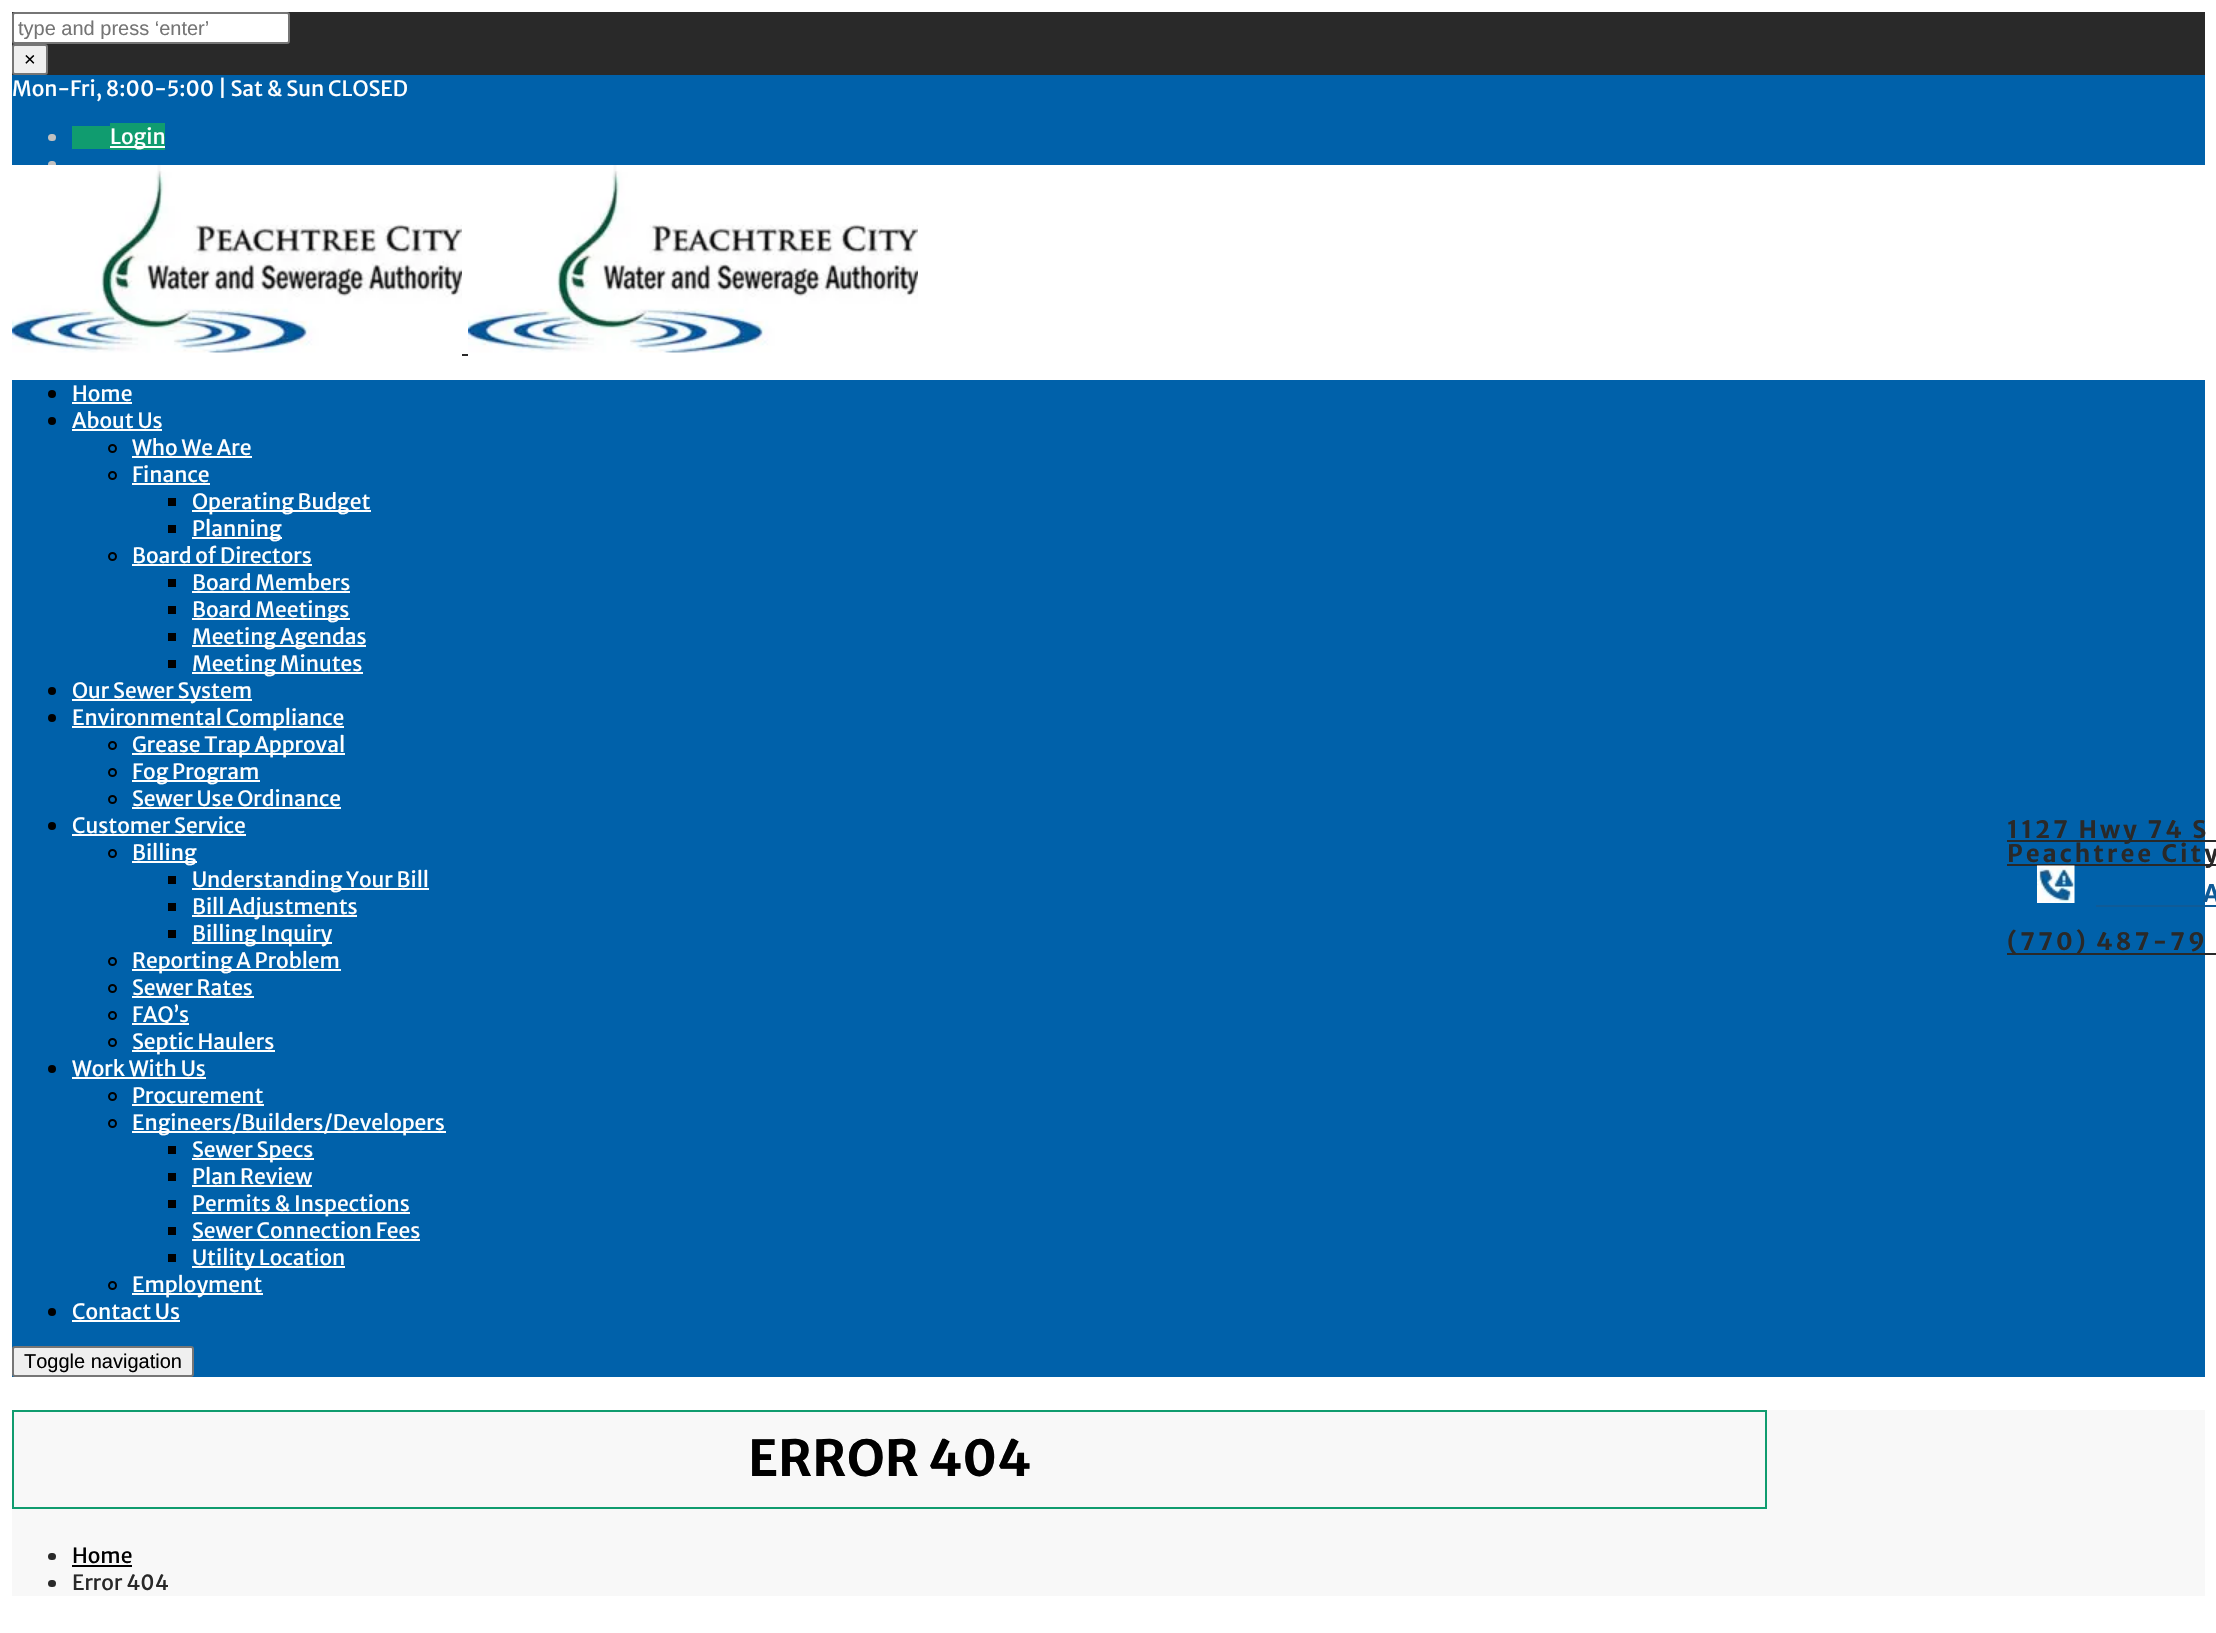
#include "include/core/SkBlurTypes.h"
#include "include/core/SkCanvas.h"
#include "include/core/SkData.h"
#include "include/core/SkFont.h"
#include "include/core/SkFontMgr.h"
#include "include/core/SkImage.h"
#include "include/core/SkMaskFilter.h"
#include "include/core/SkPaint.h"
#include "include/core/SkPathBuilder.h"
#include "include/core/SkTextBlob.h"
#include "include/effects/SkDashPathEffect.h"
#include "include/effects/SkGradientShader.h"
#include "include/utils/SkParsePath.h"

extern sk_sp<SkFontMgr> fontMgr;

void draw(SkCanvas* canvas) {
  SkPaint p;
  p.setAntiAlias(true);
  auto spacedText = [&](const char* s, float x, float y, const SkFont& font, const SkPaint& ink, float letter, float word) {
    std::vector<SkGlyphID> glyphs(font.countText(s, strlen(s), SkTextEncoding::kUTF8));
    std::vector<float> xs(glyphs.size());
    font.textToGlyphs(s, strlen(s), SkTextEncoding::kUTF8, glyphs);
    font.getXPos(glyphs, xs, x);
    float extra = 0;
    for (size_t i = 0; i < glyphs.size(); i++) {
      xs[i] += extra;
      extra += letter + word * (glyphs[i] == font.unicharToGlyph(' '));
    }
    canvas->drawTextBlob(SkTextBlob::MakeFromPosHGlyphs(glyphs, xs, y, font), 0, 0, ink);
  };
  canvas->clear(SK_ColorWHITE);
  p.setColor(SkColorSetRGB(41, 41, 41));
  canvas->drawRect(SkRect::MakeLTRB(12, 12, 2205, 75), p);
  p.setColor(SK_ColorWHITE);
  canvas->drawRoundRect(SkRect::MakeLTRB(13, 13, 289, 43), 2, 2, p);
  p.setStyle(SkPaint::kStroke_Style);
  p.setStrokeWidth(2);
  p.setColor(SkColorSetRGB(118, 118, 118));
  canvas->drawRoundRect(SkRect::MakeLTRB(13, 13, 289, 43), 2, 2, p);
  p.setStyle(SkPaint::kFill_Style);
  p.setColor(SkColorSetRGB(239, 239, 239));
  canvas->drawRoundRect(SkRect::MakeLTRB(13, 45, 47, 74), 2, 2, p);
  p.setStyle(SkPaint::kStroke_Style);
  p.setColor(SkColorSetRGB(118, 118, 118));
  canvas->drawRoundRect(SkRect::MakeLTRB(13, 45, 47, 74), 2, 2, p);
  p.setStyle(SkPaint::kFill_Style);
  p.setColor(SkColorSetRGB(0, 97, 170));
  canvas->drawRect(SkRect::MakeLTRB(12, 75, 2205, 165), p);
  p.setColor(SkColorSetRGB(193, 193, 193));
  canvas->drawRoundRect(SkRect::MakeLTRB(48, 134, 56, 141), 3.5f, 3.5f, p);
  p.setColor(SkColorSetRGB(16, 156, 111));
  canvas->drawRect(SkRect::MakeLTRB(72, 126, 110, 149), p);
  canvas->drawRect(SkRect::MakeLTRB(110, 123, 165, 150), p);
  p.setColor(SK_ColorWHITE);
  canvas->drawRect(SkRect::MakeLTRB(110, 146, 165, 148), p);
  p.setColor(SkColorSetRGB(193, 193, 193));
  canvas->drawRoundRect(SkRect::MakeLTRB(48, 161, 56, 168), 3.5f, 3.5f, p);
  p.setColor(SkColorSetRGB(0, 97, 170));
  canvas->drawRect(SkRect::MakeLTRB(12, 380, 2205, 1377), p);
  p.setColor(SK_ColorBLACK);
  canvas->drawCircle(52, 394, 4, p);
  p.setColor(SK_ColorWHITE);
  canvas->drawRect(SkRect::MakeLTRB(72, 402, 132, 404), p);
  p.setColor(SK_ColorBLACK);
  canvas->drawCircle(52, 421, 4, p);
  p.setColor(SK_ColorWHITE);
  canvas->drawRect(SkRect::MakeLTRB(72, 429, 162, 431), p);
  p.setStyle(SkPaint::kStroke_Style);
  p.setColor(SK_ColorBLACK);
  canvas->drawCircle(112.5f, 448.5f, 3.5f, p);
  p.setStyle(SkPaint::kFill_Style);
  p.setColor(SK_ColorWHITE);
  canvas->drawRect(SkRect::MakeLTRB(132, 456, 252, 458), p);
  p.setStyle(SkPaint::kStroke_Style);
  p.setColor(SK_ColorBLACK);
  canvas->drawCircle(112.5f, 475.5f, 3.5f, p);
  p.setStyle(SkPaint::kFill_Style);
  p.setColor(SK_ColorWHITE);
  canvas->drawRect(SkRect::MakeLTRB(132, 483, 210, 485), p);
  p.setColor(SK_ColorBLACK);
  canvas->drawRect(SkRect::MakeLTRB(168, 498, 176, 506), p);
  p.setColor(SK_ColorWHITE);
  canvas->drawRect(SkRect::MakeLTRB(192, 510, 371, 512), p);
  p.setColor(SK_ColorBLACK);
  canvas->drawRect(SkRect::MakeLTRB(168, 525, 176, 533), p);
  p.setColor(SK_ColorWHITE);
  canvas->drawRect(SkRect::MakeLTRB(192, 537, 282, 539), p);
  p.setStyle(SkPaint::kStroke_Style);
  p.setColor(SK_ColorBLACK);
  canvas->drawCircle(112.5f, 556.5f, 3.5f, p);
  p.setStyle(SkPaint::kFill_Style);
  p.setColor(SK_ColorWHITE);
  canvas->drawRect(SkRect::MakeLTRB(132, 564, 312, 566), p);
  p.setColor(SK_ColorBLACK);
  canvas->drawRect(SkRect::MakeLTRB(168, 579, 176, 587), p);
  p.setColor(SK_ColorWHITE);
  canvas->drawRect(SkRect::MakeLTRB(192, 591, 350, 593), p);
  p.setColor(SK_ColorBLACK);
  canvas->drawRect(SkRect::MakeLTRB(168, 606, 176, 614), p);
  p.setColor(SK_ColorWHITE);
  canvas->drawRect(SkRect::MakeLTRB(192, 618, 350, 620), p);
  p.setColor(SK_ColorBLACK);
  canvas->drawRect(SkRect::MakeLTRB(168, 633, 176, 641), p);
  p.setColor(SK_ColorWHITE);
  canvas->drawRect(SkRect::MakeLTRB(192, 645, 366, 647), p);
  p.setColor(SK_ColorBLACK);
  canvas->drawRect(SkRect::MakeLTRB(168, 660, 176, 668), p);
  p.setColor(SK_ColorWHITE);
  canvas->drawRect(SkRect::MakeLTRB(192, 672, 363, 674), p);
  p.setColor(SK_ColorBLACK);
  canvas->drawCircle(52, 691, 4, p);
  p.setColor(SK_ColorWHITE);
  canvas->drawRect(SkRect::MakeLTRB(72, 699, 252, 701), p);
  p.setColor(SK_ColorBLACK);
  canvas->drawCircle(52, 718, 4, p);
  p.setColor(SK_ColorWHITE);
  canvas->drawRect(SkRect::MakeLTRB(72, 726, 344, 728), p);
  p.setStyle(SkPaint::kStroke_Style);
  p.setColor(SK_ColorBLACK);
  canvas->drawCircle(112.5f, 745.5f, 3.5f, p);
  p.setStyle(SkPaint::kFill_Style);
  p.setColor(SK_ColorWHITE);
  canvas->drawRect(SkRect::MakeLTRB(132, 753, 345, 755), p);
  p.setStyle(SkPaint::kStroke_Style);
  p.setColor(SK_ColorBLACK);
  canvas->drawCircle(112.5f, 772.5f, 3.5f, p);
  p.setStyle(SkPaint::kFill_Style);
  p.setColor(SK_ColorWHITE);
  canvas->drawRect(SkRect::MakeLTRB(132, 780, 260, 782), p);
  p.setStyle(SkPaint::kStroke_Style);
  p.setColor(SK_ColorBLACK);
  canvas->drawCircle(112.5f, 799.5f, 3.5f, p);
  p.setStyle(SkPaint::kFill_Style);
  p.setColor(SK_ColorWHITE);
  canvas->drawRect(SkRect::MakeLTRB(132, 807, 341, 809), p);
  p.setColor(SK_ColorBLACK);
  canvas->drawCircle(52, 826, 4, p);
  p.setColor(SK_ColorWHITE);
  canvas->drawRect(SkRect::MakeLTRB(72, 834, 246, 836), p);
  p.setStyle(SkPaint::kStroke_Style);
  p.setColor(SK_ColorBLACK);
  canvas->drawCircle(112.5f, 853.5f, 3.5f, p);
  p.setStyle(SkPaint::kFill_Style);
  p.setColor(SK_ColorWHITE);
  canvas->drawRect(SkRect::MakeLTRB(132, 861, 197, 863), p);
  p.setColor(SK_ColorBLACK);
  canvas->drawRect(SkRect::MakeLTRB(168, 876, 176, 884), p);
  p.setColor(SK_ColorWHITE);
  canvas->drawRect(SkRect::MakeLTRB(192, 888, 429, 890), p);
  p.setColor(SK_ColorBLACK);
  canvas->drawRect(SkRect::MakeLTRB(168, 903, 176, 911), p);
  p.setColor(SK_ColorWHITE);
  canvas->drawRect(SkRect::MakeLTRB(192, 915, 357, 917), p);
  p.setColor(SK_ColorBLACK);
  canvas->drawRect(SkRect::MakeLTRB(168, 930, 176, 938), p);
  p.setColor(SK_ColorWHITE);
  canvas->drawRect(SkRect::MakeLTRB(192, 942, 332, 944), p);
  p.setStyle(SkPaint::kStroke_Style);
  p.setColor(SK_ColorBLACK);
  canvas->drawCircle(112.5f, 961.5f, 3.5f, p);
  p.setStyle(SkPaint::kFill_Style);
  p.setColor(SK_ColorWHITE);
  canvas->drawRect(SkRect::MakeLTRB(132, 969, 341, 971), p);
  p.setStyle(SkPaint::kStroke_Style);
  p.setColor(SK_ColorBLACK);
  canvas->drawCircle(112.5f, 988.5f, 3.5f, p);
  p.setStyle(SkPaint::kFill_Style);
  p.setColor(SK_ColorWHITE);
  canvas->drawRect(SkRect::MakeLTRB(132, 996, 254, 998), p);
  p.setStyle(SkPaint::kStroke_Style);
  p.setColor(SK_ColorBLACK);
  canvas->drawCircle(112.5f, 1015.5f, 3.5f, p);
  p.setStyle(SkPaint::kFill_Style);
  p.setColor(SK_ColorWHITE);
  canvas->drawRect(SkRect::MakeLTRB(132, 1023, 189, 1025), p);
  p.setStyle(SkPaint::kStroke_Style);
  p.setColor(SK_ColorBLACK);
  canvas->drawCircle(112.5f, 1042.5f, 3.5f, p);
  p.setStyle(SkPaint::kFill_Style);
  p.setColor(SK_ColorWHITE);
  canvas->drawRect(SkRect::MakeLTRB(132, 1050, 275, 1052), p);
  p.setColor(SK_ColorBLACK);
  canvas->drawCircle(52, 1069, 4, p);
  p.setColor(SK_ColorWHITE);
  canvas->drawRect(SkRect::MakeLTRB(72, 1077, 206, 1079), p);
  p.setStyle(SkPaint::kStroke_Style);
  p.setColor(SK_ColorBLACK);
  canvas->drawCircle(112.5f, 1096.5f, 3.5f, p);
  p.setStyle(SkPaint::kFill_Style);
  p.setColor(SK_ColorWHITE);
  canvas->drawRect(SkRect::MakeLTRB(132, 1104, 264, 1106), p);
  p.setStyle(SkPaint::kStroke_Style);
  p.setColor(SK_ColorBLACK);
  canvas->drawCircle(112.5f, 1123.5f, 3.5f, p);
  p.setStyle(SkPaint::kFill_Style);
  p.setColor(SK_ColorWHITE);
  canvas->drawRect(SkRect::MakeLTRB(132, 1131, 446, 1133), p);
  p.setColor(SK_ColorBLACK);
  canvas->drawRect(SkRect::MakeLTRB(168, 1146, 176, 1154), p);
  p.setColor(SK_ColorWHITE);
  canvas->drawRect(SkRect::MakeLTRB(192, 1158, 314, 1160), p);
  p.setColor(SK_ColorBLACK);
  canvas->drawRect(SkRect::MakeLTRB(168, 1173, 176, 1181), p);
  p.setColor(SK_ColorWHITE);
  canvas->drawRect(SkRect::MakeLTRB(192, 1185, 312, 1187), p);
  p.setColor(SK_ColorBLACK);
  canvas->drawRect(SkRect::MakeLTRB(168, 1200, 176, 1208), p);
  p.setColor(SK_ColorWHITE);
  canvas->drawRect(SkRect::MakeLTRB(192, 1212, 410, 1214), p);
  p.setColor(SK_ColorBLACK);
  canvas->drawRect(SkRect::MakeLTRB(168, 1227, 176, 1235), p);
  p.setColor(SK_ColorWHITE);
  canvas->drawRect(SkRect::MakeLTRB(192, 1239, 420, 1241), p);
  p.setColor(SK_ColorBLACK);
  canvas->drawRect(SkRect::MakeLTRB(168, 1254, 176, 1262), p);
  p.setColor(SK_ColorWHITE);
  canvas->drawRect(SkRect::MakeLTRB(192, 1266, 345, 1268), p);
  p.setStyle(SkPaint::kStroke_Style);
  p.setColor(SK_ColorBLACK);
  canvas->drawCircle(112.5f, 1285.5f, 3.5f, p);
  p.setStyle(SkPaint::kFill_Style);
  p.setColor(SK_ColorWHITE);
  canvas->drawRect(SkRect::MakeLTRB(132, 1293, 263, 1295), p);
  p.setColor(SK_ColorBLACK);
  canvas->drawCircle(52, 1312, 4, p);
  p.setColor(SK_ColorWHITE);
  canvas->drawRect(SkRect::MakeLTRB(72, 1320, 180, 1322), p);
  p.setColor(SkColorSetRGB(239, 239, 239));
  canvas->drawRoundRect(SkRect::MakeLTRB(13, 1347, 193, 1376), 2, 2, p);
  p.setStyle(SkPaint::kStroke_Style);
  p.setColor(SkColorSetRGB(118, 118, 118));
  canvas->drawRoundRect(SkRect::MakeLTRB(13, 1347, 193, 1376), 2, 2, p);
  canvas->drawImageRect(SkImages::DeferredFromEncodedData(SkData::MakeFromFileName("images/1.png")), SkRect::MakeLTRB(12, 165, 462, 353), SkSamplingOptions());
  canvas->drawImageRect(SkImages::DeferredFromEncodedData(SkData::MakeFromFileName("images/2.png")), SkRect::MakeLTRB(468, 165, 918, 353), SkSamplingOptions());
  p.setStyle(SkPaint::kFill_Style);
  p.setColor(SkColorSetRGB(41, 41, 41));
  canvas->drawRect(SkRect::MakeLTRB(462, 354, 468, 356), p);
  canvas->drawRect(SkRect::MakeLTRB(2007, 840, 2216, 842), p);
  canvas->drawRect(SkRect::MakeLTRB(2007, 864, 2216, 866), p);
  p.setColor(SkColorSetRGB(15, 91, 151));
  canvas->drawRect(SkRect::MakeLTRB(2096, 905, 2216, 907), p);
  p.setColor(SkColorSetRGB(41, 41, 41));
  canvas->drawRect(SkRect::MakeLTRB(2007, 953, 2216, 955), p);
  p.setColor(SkColorSetRGB(248, 248, 248));
  canvas->drawRect(SkRect::MakeLTRB(12, 1410, 2205, 1596), p);
  p.setStyle(SkPaint::kStroke_Style);
  p.setColor(SkColorSetRGB(16, 156, 111));
  canvas->drawRect(SkRect::MakeLTRB(13, 1411, 1766, 1508), p);
  p.setStyle(SkPaint::kFill_Style);
  p.setColor(SkColorSetRGB(41, 41, 41));
  canvas->drawRoundRect(SkRect::MakeLTRB(48, 1553, 56, 1560), 3.5f, 3.5f, p);
  p.setColor(SK_ColorBLACK);
  canvas->drawRect(SkRect::MakeLTRB(72, 1565, 132, 1567), p);
  p.setColor(SkColorSetRGB(41, 41, 41));
  canvas->drawRoundRect(SkRect::MakeLTRB(48, 1580, 56, 1587), 3.5f, 3.5f, p);
  canvas->save();
  canvas->clipRect(SkRect::MakeLTRB(18, 17, 284, 39));
  SkFont font1(fontMgr->matchFamilyStyle("Liberation Sans", SkFontStyle::Normal()), 20);
  font1.setSubpixel(true);
  p.setColor(SkColorSetRGB(117, 117, 117));
  canvas->drawString("type and press ‘enter’", 18, 35, font1, p);
  canvas->restore();
  p.setColor(SK_ColorBLACK);
  canvas->drawString("×", 24, 66, font1, p);
  SkFont font2(fontMgr->matchFamilyStyle("Merriweather Sans", SkFontStyle::Normal()), 21);
  font2.setSubpixel(true);
  p.setColor(SK_ColorWHITE);
  canvas->drawString("Mon-Fri, 8:00-5:00 | Sat & Sun CLOSED", 12, 96, font2, p);
  canvas->drawString("Login", 110, 144, font2, p);
  canvas->drawString("Home", 72, 401, font2, p);
  canvas->drawString("About Us", 72, 428, font2, p);
  canvas->drawString("Who We Are", 132, 455, font2, p);
  canvas->drawString("Finance", 132, 482, font2, p);
  canvas->drawString("Operating Budget", 192, 509, font2, p);
  canvas->drawString("Planning", 192, 536, font2, p);
  canvas->drawString("Board of Directors", 132, 563, font2, p);
  canvas->drawString("Board Members", 192, 590, font2, p);
  canvas->drawString("Board Meetings", 192, 617, font2, p);
  canvas->drawString("Meeting Agendas", 192, 644, font2, p);
  canvas->drawString("Meeting Minutes", 192, 671, font2, p);
  canvas->drawString("Our Sewer System", 72, 698, font2, p);
  canvas->drawString("Environmental Compliance", 72, 725, font2, p);
  canvas->drawString("Grease Trap Approval", 132, 752, font2, p);
  canvas->drawString("Fog Program", 132, 779, font2, p);
  canvas->drawString("Sewer Use Ordinance", 132, 806, font2, p);
  canvas->drawString("Customer Service", 72, 833, font2, p);
  canvas->drawString("Billing", 132, 860, font2, p);
  canvas->drawString("Understanding Your Bill", 192, 887, font2, p);
  canvas->drawString("Bill Adjustments", 192, 914, font2, p);
  canvas->drawString("Billing Inquiry", 192, 941, font2, p);
  canvas->drawString("Reporting A Problem", 132, 968, font2, p);
  canvas->drawString("Sewer Rates", 132, 995, font2, p);
  canvas->drawString("FAQ’s", 132, 1022, font2, p);
  canvas->drawString("Septic Haulers", 132, 1049, font2, p);
  canvas->drawString("Work With Us", 72, 1076, font2, p);
  canvas->drawString("Procurement", 132, 1103, font2, p);
  canvas->drawString("Engineers/Builders/Developers", 132, 1130, font2, p);
  canvas->drawString("Sewer Specs", 192, 1157, font2, p);
  canvas->drawString("Plan Review", 192, 1184, font2, p);
  canvas->drawString("Permits & Inspections", 192, 1211, font2, p);
  canvas->drawString("Sewer Connection Fees", 192, 1238, font2, p);
  canvas->drawString("Utility Location", 192, 1265, font2, p);
  canvas->drawString("Employment", 132, 1292, font2, p);
  canvas->drawString("Contact Us", 72, 1319, font2, p);
  p.setColor(SK_ColorBLACK);
  canvas->drawString("Toggle navigation", 24, 1368, font1, p);
  SkFont font3(fontMgr->matchFamilyStyle("Merriweather Sans", SkFontStyle::Bold()), 24);
  font3.setSubpixel(true);
  p.setColor(SkColorSetRGB(41, 41, 41));
  spacedText("1127 Hwy 74 S", 2007, 838, font3, p, 3, 0);
  spacedText("Peachtree City", 2007, 862, font3, p, 3, 0);
  canvas->drawImageRect(SkImages::DeferredFromEncodedData(SkData::MakeFromFileName("images/3.png")), SkRect::MakeLTRB(2037, 865, 2075, 903), SkSamplingOptions());
  p.setColor(SkColorSetRGB(15, 91, 151));
  spacedText("A", 2203, 902, font3, p, 3, 0);
  p.setColor(SkColorSetRGB(41, 41, 41));
  spacedText("(770) 487-79", 2007, 950, font3, p, 3, 0);
  SkFont font4(fontMgr->matchFamilyStyle("Merriweather Sans", SkFontStyle::Bold()), 49.5f);
  font4.setSubpixel(true);
  p.setColor(SK_ColorBLACK);
  canvas->drawString("ERROR 404", 748, 1476, font4, p);
  canvas->drawString("Home", 72, 1563, font2, p);
  p.setColor(SkColorSetRGB(41, 41, 41));
  canvas->drawString("Error 404", 72, 1590, font2, p);
}
